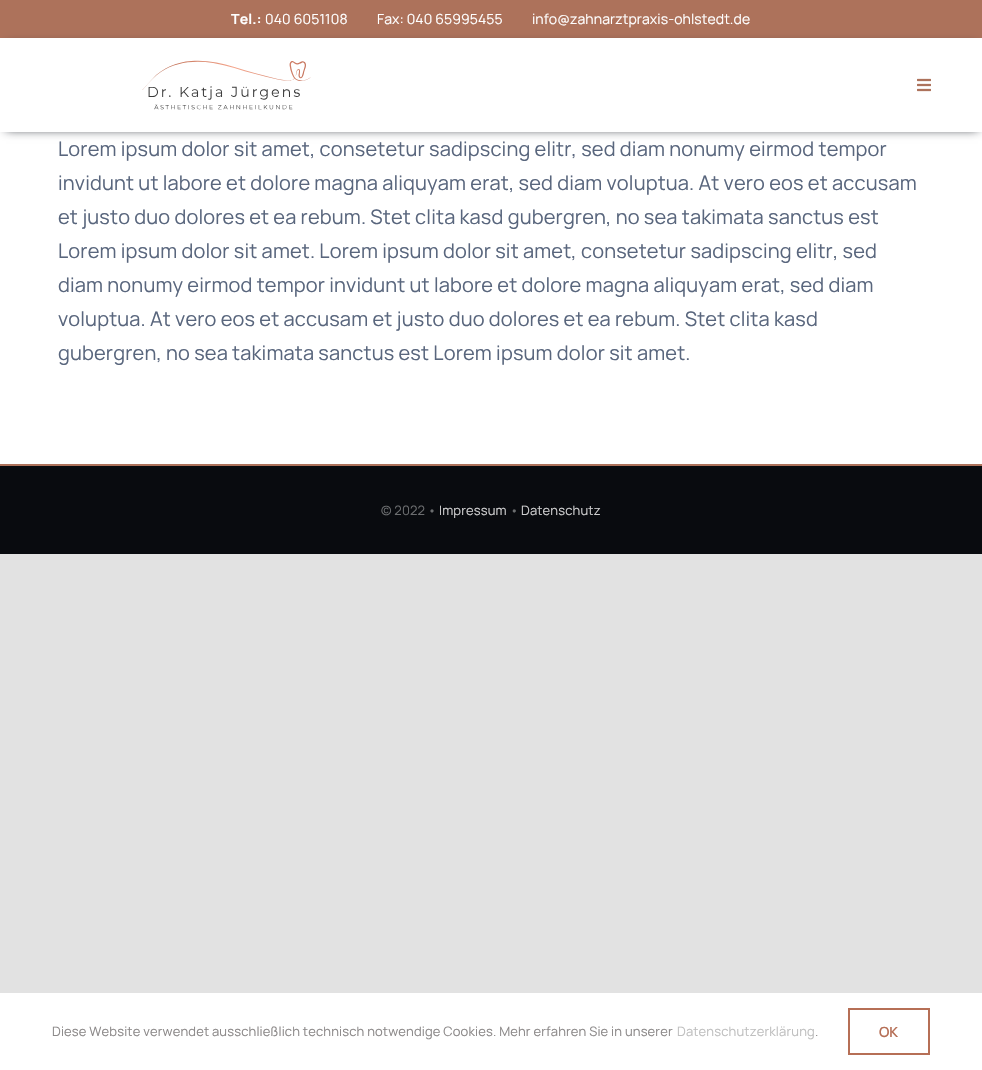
#include "include/core/SkBlurTypes.h"
#include "include/core/SkCanvas.h"
#include "include/core/SkData.h"
#include "include/core/SkFont.h"
#include "include/core/SkFontMgr.h"
#include "include/core/SkImage.h"
#include "include/core/SkMaskFilter.h"
#include "include/core/SkPaint.h"
#include "include/core/SkPathBuilder.h"
#include "include/core/SkTextBlob.h"
#include "include/effects/SkDashPathEffect.h"
#include "include/effects/SkGradientShader.h"
#include "include/utils/SkParsePath.h"

extern sk_sp<SkFontMgr> fontMgr;

void draw(SkCanvas* canvas) {
  SkPaint p;
  p.setAntiAlias(true);
  auto spacedText = [&](const char* s, float x, float y, const SkFont& font, const SkPaint& ink, float letter, float word) {
    std::vector<SkGlyphID> glyphs(font.countText(s, strlen(s), SkTextEncoding::kUTF8));
    std::vector<float> xs(glyphs.size());
    font.textToGlyphs(s, strlen(s), SkTextEncoding::kUTF8, glyphs);
    font.getXPos(glyphs, xs, x);
    float extra = 0;
    for (size_t i = 0; i < glyphs.size(); i++) {
      xs[i] += extra;
      extra += letter + word * (glyphs[i] == font.unicharToGlyph(' '));
    }
    canvas->drawTextBlob(SkTextBlob::MakeFromPosHGlyphs(glyphs, xs, y, font), 0, 0, ink);
  };
  canvas->clear(SkColorSetRGB(226, 226, 226));
  p.setColor(SK_ColorWHITE);
  canvas->drawRect(SkRect::MakeLTRB(0, 38, 982, 464), p);
  p.setColor(SkColorSetRGB(173, 114, 91));
  canvas->drawRect(SkRect::MakeLTRB(0, 0, 982, 38), p);
  canvas->save();
  canvas->clipPath(SkPathBuilder(SkPathFillType::kEvenOdd).moveTo(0, 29).lineTo(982, 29).lineTo(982, 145).lineTo(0, 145).close().moveTo(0, 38).lineTo(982, 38).lineTo(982, 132).lineTo(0, 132).close().detach(), true);
  p.setColor(SkColorSetRGB(24, 29, 38));
  p.setMaskFilter(SkMaskFilter::MakeBlur(kNormal_SkBlurStyle, 5));
  canvas->drawRect(SkRect::MakeLTRB(6, 45, 978, 129), p);
  p.setMaskFilter(nullptr);
  canvas->restore();
  canvas->drawImageRect(SkImages::DeferredFromEncodedData(SkData::MakeFromFileName("images/1.png")), SkRect::MakeLTRB(142, 60, 311, 110), SkSamplingOptions());
  canvas->drawImageRect(SkImages::DeferredFromEncodedData(SkData::MakeFromFileName("images/2.png")), SkRect::MakeLTRB(917, 78, 931, 92), SkSamplingOptions());
  p.setColor(SkColorSetRGB(9, 11, 15));
  canvas->drawRect(SkRect::MakeLTRB(0, 466, 982, 554), p);
  p.setColor(SkColorSetRGB(173, 114, 91));
  canvas->drawRect(SkRect::MakeLTRB(0, 464, 982, 466), p);
  p.setColor(SK_ColorWHITE);
  canvas->drawRect(SkRect::MakeLTRB(0, 993, 982, 1070), p);
  p.setStyle(SkPaint::kStroke_Style);
  p.setStrokeWidth(2);
  p.setColor(SkColorSetRGB(182, 111, 86));
  canvas->drawRect(SkRect::MakeLTRB(849, 1009, 929, 1054), p);
  SkFont font1(fontMgr->matchFamilyStyle("Manrope", SkFontStyle::Bold()), 14);
  font1.setSubpixel(true);
  p.setStyle(SkPaint::kFill_Style);
  p.setColor(SK_ColorWHITE);
  spacedText("Tel.:", 231, 24, font1, p, 0.15f, 0);
  SkFont font2(fontMgr->matchFamilyStyle("Manrope", SkFontStyle::Normal()), 14);
  font2.setSubpixel(true);
  spacedText("040 6051108", 265, 24, font2, p, 0.15f, 0);
  spacedText("Fax: 040 65995455", 377, 24, font2, p, 0.1f, 0);
  spacedText("info@zahnarztpraxis-ohlstedt.de", 532, 24, font2, p, 0.1f, 0);
  SkFont font3(fontMgr->matchFamilyStyle("Manrope", SkFontStyle::Normal()), 20);
  font3.setSubpixel(true);
  p.setColor(SkColorSetRGB(89, 102, 125));
  spacedText("Lorem ipsum dolor sit amet, consetetur sadipscing elitr, sed diam nonumy eirmod tempor", 58, 156, font3, p, 0.15f, 0);
  spacedText("invidunt ut labore et dolore magna aliquyam erat, sed diam voluptua. At vero eos et accusam", 58, 190, font3, p, 0.15f, 0);
  spacedText("et justo duo dolores et ea rebum. Stet clita kasd gubergren, no sea takimata sanctus est", 58, 224, font3, p, 0.15f, 0);
  spacedText("Lorem ipsum dolor sit amet. Lorem ipsum dolor sit amet, consetetur sadipscing elitr, sed", 58, 258, font3, p, 0.15f, 0);
  spacedText("diam nonumy eirmod tempor invidunt ut labore et dolore magna aliquyam erat, sed diam", 58, 292, font3, p, 0.15f, 0);
  spacedText("voluptua. At vero eos et accusam et justo duo dolores et ea rebum. Stet clita kasd", 58, 326, font3, p, 0.15f, 0);
  spacedText("gubergren, no sea takimata sanctus est Lorem ipsum dolor sit amet.", 58, 360, font3, p, 0.15f, 0);
  SkFont font4(fontMgr->matchFamilyStyle("Manrope", SkFontStyle::Normal()), 13);
  font4.setSubpixel(true);
  p.setColor(SkColorSetRGB(107, 109, 111));
  spacedText("© 2022 •", 381, 515, font4, p, 0.15f, 0);
  p.setColor(SkColorSetRGB(206, 206, 207));
  spacedText("Impressum", 439, 515, font4, p, 0.15f, 0);
  p.setColor(SkColorSetRGB(107, 109, 111));
  spacedText("•", 510, 515, font4, p, 0.15f, 0);
  p.setColor(SkColorSetRGB(206, 206, 207));
  spacedText("Datenschutz", 521, 515, font4, p, 0.15f, 0);
  p.setColor(SkColorSetRGB(140, 137, 137));
  spacedText("Diese Website verwendet ausschließlich technisch notwendige Cookies. Mehr erfahren Sie in unserer", 52, 1036, font4, p, 0.15f, 0);
  p.setColor(SkColorSetRGB(191, 191, 191));
  spacedText("Datenschutzerklärung", 677, 1036, font4, p, 0.15f, 0);
  p.setColor(SkColorSetRGB(140, 137, 137));
  spacedText(".", 815, 1036, font4, p, 0.15f, 0);
  SkFont font5(fontMgr->matchFamilyStyle("Manrope", SkFontStyle(600, SkFontStyle::kNormal_Width, SkFontStyle::kUpright_Slant)), 14);
  font5.setSubpixel(true);
  p.setColor(SkColorSetRGB(182, 111, 86));
  canvas->drawString("OK", 879, 1037, font5, p);
}
